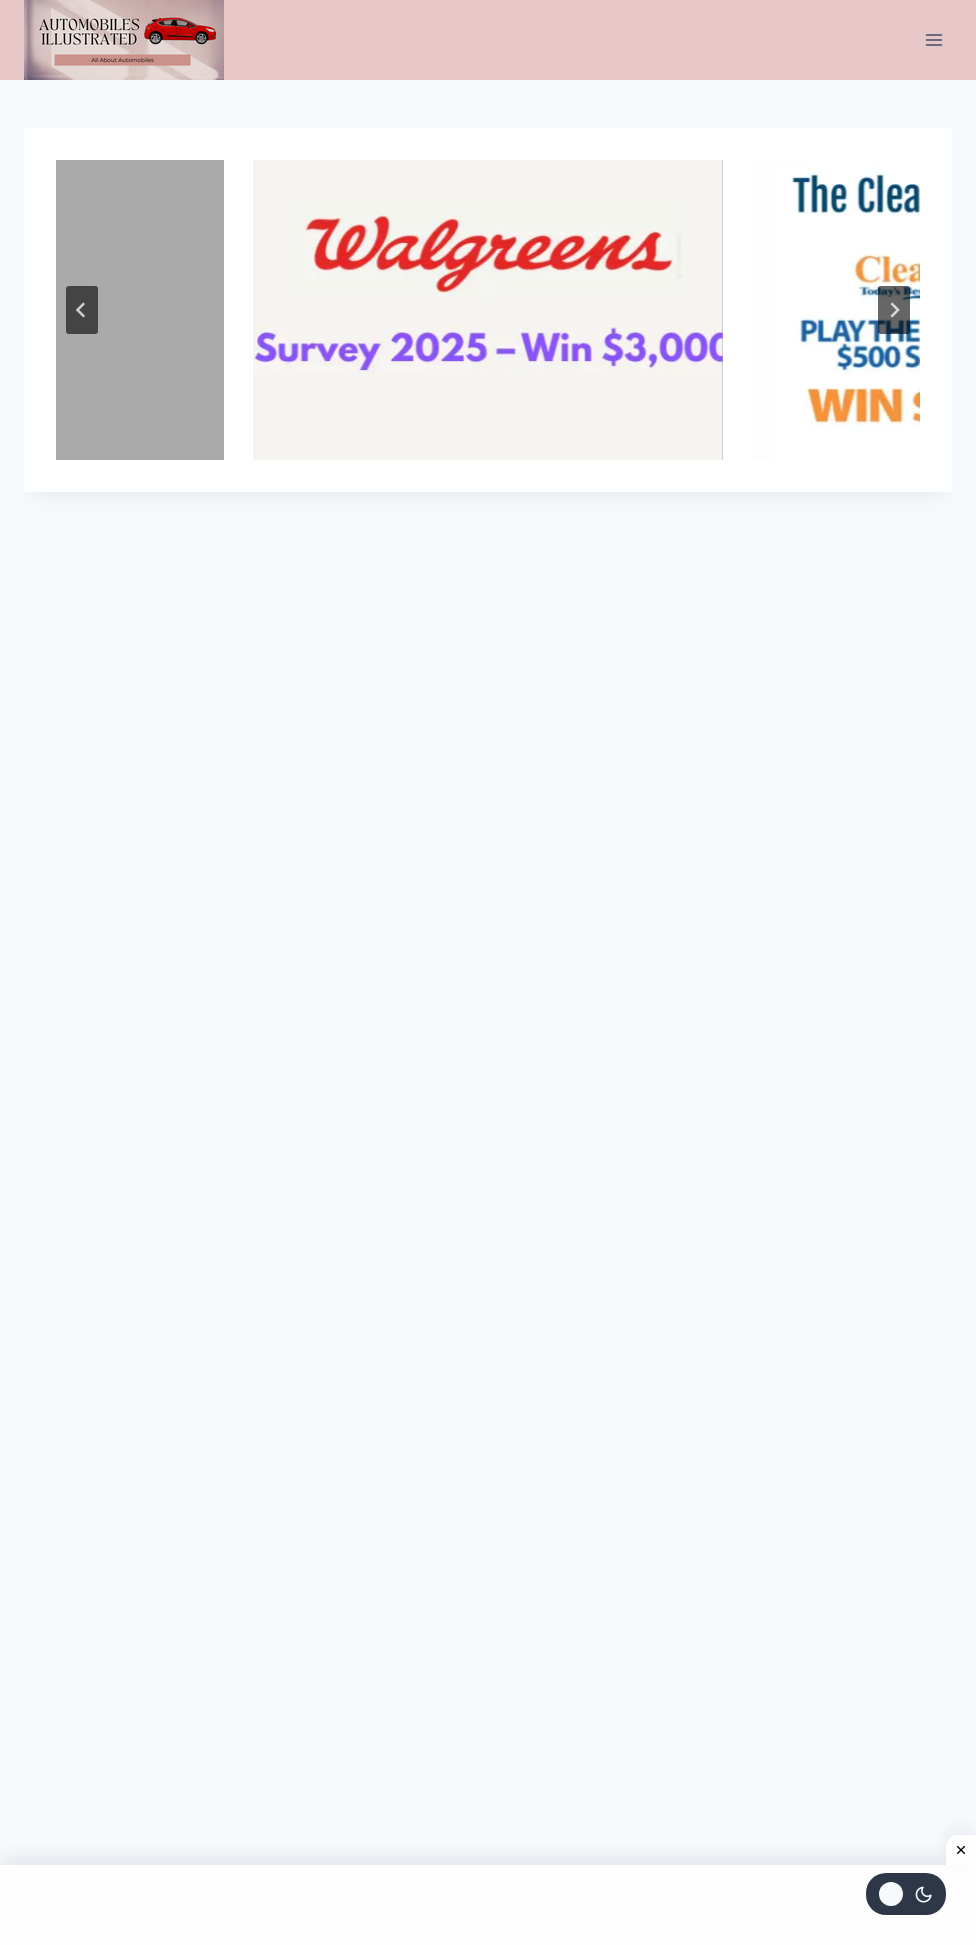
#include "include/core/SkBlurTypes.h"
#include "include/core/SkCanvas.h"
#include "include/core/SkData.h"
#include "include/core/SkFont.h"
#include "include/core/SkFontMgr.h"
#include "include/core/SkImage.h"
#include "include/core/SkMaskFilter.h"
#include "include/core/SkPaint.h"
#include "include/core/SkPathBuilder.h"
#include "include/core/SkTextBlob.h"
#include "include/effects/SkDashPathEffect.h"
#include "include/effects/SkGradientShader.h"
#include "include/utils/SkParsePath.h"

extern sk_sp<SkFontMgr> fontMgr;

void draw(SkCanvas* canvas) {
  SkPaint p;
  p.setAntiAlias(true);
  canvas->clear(SkColorSetRGB(247, 250, 252));
  p.setColor(SkColorSetRGB(231, 199, 199));
  canvas->drawRect(SkRect::MakeLTRB(0, 0, 976, 80), p);
  canvas->drawImageRect(SkImages::DeferredFromEncodedData(SkData::MakeFromFileName("images/1.png")), SkRect::MakeLTRB(24, 0, 224, 80), SkSamplingOptions());
  canvas->drawImageRect(SkImages::DeferredFromEncodedData(SkData::MakeFromFileName("images/2.png")), SkRect::MakeLTRB(925, 34, 943, 46), SkSamplingOptions());
  p.setColor(SkColorSetARGB(13, 0, 0, 0));
  p.setMaskFilter(SkMaskFilter::MakeBlur(kNormal_SkBlurStyle, 7.5f));
  canvas->drawRect(SkRect::MakeLTRB(34, 153, 942, 497), p);
  p.setMaskFilter(nullptr);
  p.setColor(SK_ColorWHITE);
  canvas->drawRoundRect(SkRect::MakeLTRB(24, 128, 952, 492), 4, 4, p);
  p.setColor(SkColorSetRGB(170, 170, 170));
  canvas->drawRect(SkRect::MakeLTRB(56, 160, 224, 460), p);
  canvas->drawRect(SkRect::MakeLTRB(722, 160, 723, 460), p);
  canvas->drawImageRect(SkImages::DeferredFromEncodedData(SkData::MakeFromFileName("images/3.png")), SkRect::MakeLTRB(253, 160, 723, 460), SkSamplingOptions());
  canvas->drawImageRect(SkImages::DeferredFromEncodedData(SkData::MakeFromFileName("images/4.png")), SkRect::MakeLTRB(753, 160, 920, 460), SkSamplingOptions());
  p.setColor(SkColorSetRGB(68, 68, 68));
  canvas->drawRoundRect(SkRect::MakeLTRB(66, 286, 98, 334), 3, 3, p);
  canvas->drawImageRect(SkImages::DeferredFromEncodedData(SkData::MakeFromFileName("images/5.png")), SkRect::MakeLTRB(75, 302, 85, 318), SkSamplingOptions());
  p.setColor(SkColorSetARGB(153, 0, 0, 0));
  canvas->drawRoundRect(SkRect::MakeLTRB(878, 286, 910, 334), 3, 3, p);
  canvas->drawImageRect(SkImages::DeferredFromEncodedData(SkData::MakeFromFileName("images/6.png")), SkRect::MakeLTRB(890, 302, 900, 318), SkSamplingOptions());
  p.setColor(SkColorSetARGB(26, 9, 32, 76));
  p.setMaskFilter(SkMaskFilter::MakeBlur(kNormal_SkBlurStyle, 9));
  canvas->drawRect(SkRect::MakeLTRB(0, 1859, 976, 1939), p);
  p.setMaskFilter(nullptr);
  p.setColor(SkColorSetRGB(254, 254, 254));
  canvas->drawRect(SkRect::MakeLTRB(0, 1865, 976, 1945), p);
  p.setColor(SkColorSetARGB(20, 9, 32, 76));
  p.setMaskFilter(SkMaskFilter::MakeBlur(kNormal_SkBlurStyle, 9));
  canvas->drawRoundRect(SkRect::MakeLTRB(946, 1829, 976, 1859), 12, 12, p);
  p.setMaskFilter(nullptr);
  p.setColor(SkColorSetRGB(254, 254, 254));
  canvas->drawPath(SkPathBuilder().moveTo(958, 1835).lineTo(976, 1835).lineTo(976, 1865).lineTo(946, 1865).lineTo(946, 1847).cubicTo(946, 1840.5f, 951.5f, 1835, 958, 1835).close().detach(), p);
  canvas->drawImageRect(SkImages::DeferredFromEncodedData(SkData::MakeFromFileName("images/7.png")), SkRect::MakeLTRB(956, 1845, 966, 1855), SkSamplingOptions());
  p.setColor(SkColorSetRGB(45, 55, 72));
  canvas->drawRoundRect(SkRect::MakeLTRB(866, 1873, 946, 1915), 20, 20, p);
  p.setColor(SkColorSetRGB(247, 250, 252));
  canvas->drawCircle(891, 1894, 12, p);
  canvas->drawImageRect(SkImages::DeferredFromEncodedData(SkData::MakeFromFileName("images/8.png")), SkRect::MakeLTRB(915, 1886, 932, 1903), SkSamplingOptions());
}
